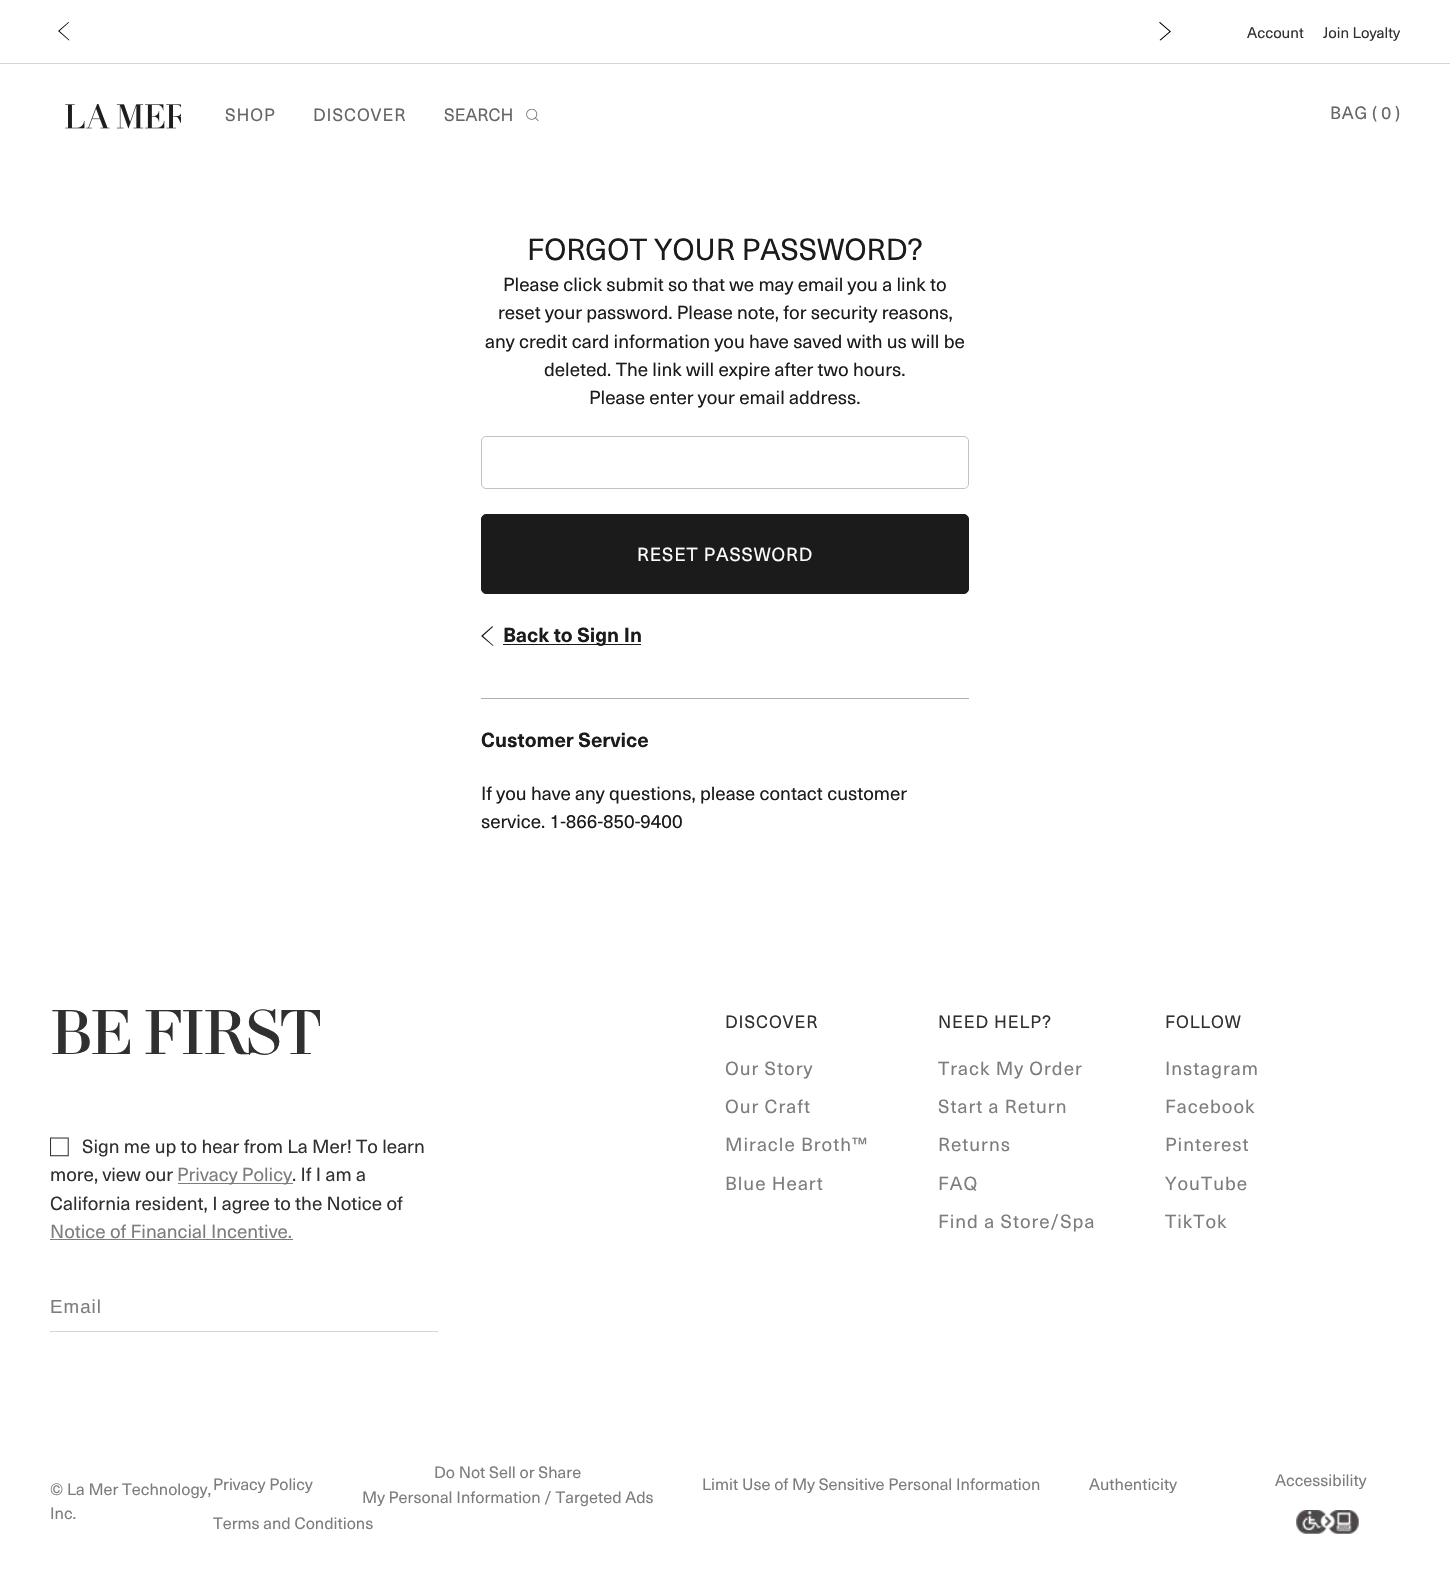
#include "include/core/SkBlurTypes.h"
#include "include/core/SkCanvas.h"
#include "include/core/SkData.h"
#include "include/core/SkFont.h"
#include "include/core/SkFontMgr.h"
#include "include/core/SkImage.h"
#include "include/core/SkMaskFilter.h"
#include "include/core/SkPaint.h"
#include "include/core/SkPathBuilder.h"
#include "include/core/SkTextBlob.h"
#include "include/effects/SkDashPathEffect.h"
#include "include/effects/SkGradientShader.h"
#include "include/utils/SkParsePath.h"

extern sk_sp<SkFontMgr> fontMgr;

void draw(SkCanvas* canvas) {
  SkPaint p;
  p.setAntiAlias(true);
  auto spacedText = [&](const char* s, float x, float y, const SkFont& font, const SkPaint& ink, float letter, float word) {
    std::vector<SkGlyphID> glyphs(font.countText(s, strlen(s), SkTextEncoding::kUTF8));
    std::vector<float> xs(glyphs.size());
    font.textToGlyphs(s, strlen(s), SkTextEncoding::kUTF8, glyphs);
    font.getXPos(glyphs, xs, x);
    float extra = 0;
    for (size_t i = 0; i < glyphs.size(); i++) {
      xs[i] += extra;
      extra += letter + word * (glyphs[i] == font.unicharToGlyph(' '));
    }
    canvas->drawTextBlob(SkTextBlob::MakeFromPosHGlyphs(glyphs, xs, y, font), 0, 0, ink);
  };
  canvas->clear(SK_ColorWHITE);
  p.setColor(SkColorSetRGB(214, 214, 214));
  canvas->drawRect(SkRect::MakeLTRB(0, 63, 1450, 64), p);
  p.setColor(SK_ColorBLACK);
  canvas->drawPath(SkPathBuilder().moveTo(58, 31).lineTo(68.5f, 22).lineTo(69, 22.5f).lineTo(59.5f, 31).lineTo(69.5f, 40).lineTo(69, 40.5f).close().detach(), p);
  canvas->drawPath(SkPathBuilder().moveTo(1171, 31.5f).lineTo(1160.5f, 40.5f).lineTo(1159.5f, 40).lineTo(1169.5f, 31.5f).lineTo(1159, 22.5f).lineTo(1160, 22).close().detach(), p);
  canvas->drawImageRect(SkImages::DeferredFromEncodedData(SkData::MakeFromFileName("images/1.png")), SkRect::MakeLTRB(65, 104, 181, 129), SkSamplingOptions());
  canvas->drawImageRect(SkImages::DeferredFromEncodedData(SkData::MakeFromFileName("images/2.png")), SkRect::MakeLTRB(526, 109, 539, 121), SkSamplingOptions());
  p.setStyle(SkPaint::kStroke_Style);
  p.setStrokeWidth(1);
  p.setColor(SkColorSetRGB(194, 194, 194));
  canvas->drawRoundRect(SkRect::MakeLTRB(481.5f, 436.5f, 968.5f, 488.5f), 4.5f, 4.5f, p);
  p.setStyle(SkPaint::kFill_Style);
  p.setColor(SkColorSetRGB(27, 27, 27));
  canvas->drawRoundRect(SkRect::MakeLTRB(481.5f, 514.5f, 968.5f, 593.5f), 4.5f, 4.5f, p);
  p.setStyle(SkPaint::kStroke_Style);
  canvas->drawRoundRect(SkRect::MakeLTRB(481.5f, 514.5f, 968.5f, 593.5f), 4.5f, 4.5f, p);
  p.setStyle(SkPaint::kFill_Style);
  p.setColor(SkColorSetRGB(176, 176, 176));
  canvas->drawRect(SkRect::MakeLTRB(481, 698, 969, 699), p);
  p.setColor(SkColorSetRGB(27, 27, 27));
  canvas->drawPath(SkPathBuilder().moveTo(481, 636).lineTo(492.5f, 626).lineTo(493, 627).lineTo(483, 636).lineTo(493.5f, 645.5f).lineTo(493, 646).close().detach(), p);
  canvas->drawRect(SkRect::MakeLTRB(503, 644, 641, 645), p);
  canvas->drawImageRect(SkImages::DeferredFromEncodedData(SkData::MakeFromFileName("images/3.png")), SkRect::MakeLTRB(50, 1137, 69, 1157), SkSamplingOptions());
  p.setColor(SkColorSetRGB(125, 125, 125));
  canvas->drawRect(SkRect::MakeLTRB(178, 1183, 293, 1184), p);
  canvas->drawRect(SkRect::MakeLTRB(50, 1239, 293, 1240), p);
  p.setColor(SkColorSetRGB(214, 214, 214));
  canvas->drawRect(SkRect::MakeLTRB(50, 1331, 438, 1332), p);
  canvas->drawImageRect(SkImages::DeferredFromEncodedData(SkData::MakeFromFileName("images/4.png")), SkRect::MakeLTRB(1296, 1510, 1359, 1534), SkSamplingOptions());
  SkFont font1(fontMgr->matchFamilyStyle("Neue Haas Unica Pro", SkFontStyle::Normal()), 15);
  font1.setSubpixel(true);
  p.setColor(SkColorSetRGB(48, 48, 48));
  canvas->drawString("Account", 1247, 38, font1, p);
  canvas->drawString("Join Loyalty", 1323, 38, font1, p);
  SkFont font2(fontMgr->matchFamilyStyle("Neue Haas Unica Pro", SkFontStyle::Normal()), 17.5f);
  font2.setSubpixel(true);
  p.setColor(SkColorSetRGB(102, 102, 102));
  spacedText("SHOP", 225, 121, font2, p, 0.9f, 0);
  spacedText("DISCOVER", 313, 121, font2, p, 0.9f, 0);
  canvas->drawString("SEARCH", 444, 121, font2, p);
  spacedText("BAG", 1330, 119, font2, p, 0.9f, 0);
  canvas->drawString("( 0 )", 1372, 119, font2, p);
  SkFont font3(fontMgr->matchFamilyStyle("Neue Haas Unica Pro", SkFontStyle::Normal()), 30);
  font3.setSubpixel(true);
  p.setColor(SkColorSetRGB(27, 27, 27));
  canvas->drawString("FORGOT YOUR PASSWORD?", 527, 260, font3, p);
  SkFont font4(fontMgr->matchFamilyStyle("Neue Haas Unica Pro", SkFontStyle::Normal()), 18.75f);
  font4.setSubpixel(true);
  canvas->drawString("Please click submit so that we may email you a link to", 503, 291, font4, p);
  canvas->drawString("reset your password. Please note, for security reasons,", 498, 319, font4, p);
  canvas->drawString("any credit card information you have saved with us will be", 485, 348, font4, p);
  canvas->drawString("deleted. The link will expire after two hours.", 544, 376, font4, p);
  canvas->drawString("Please enter your email address.", 589, 404, font4, p);
  SkFont font5(fontMgr->matchFamilyStyle("Neue Haas Unica Pro", SkFontStyle::Normal()), 18.5f);
  font5.setSubpixel(true);
  p.setColor(SK_ColorWHITE);
  spacedText("RESET PASSWORD", 637, 561, font5, p, 0.9f, 0);
  SkFont font6(fontMgr->matchFamilyStyle("Neue Haas Unica Pro", SkFontStyle::Bold()), 20);
  font6.setSubpixel(true);
  p.setColor(SkColorSetRGB(27, 27, 27));
  canvas->drawString("Back to Sign In", 503, 642, font6, p);
  canvas->drawString("Customer Service", 481, 747, font6, p);
  canvas->drawString("If you have any questions, please contact customer", 481, 800, font4, p);
  canvas->drawString("service. 1-866-850-9400", 481, 828, font4, p);
  SkFont font7(fontMgr->matchFamilyStyle("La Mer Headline", SkFontStyle(900, SkFontStyle::kNormal_Width, SkFontStyle::kUpright_Slant)), 62);
  font7.setSubpixel(true);
  p.setColor(SkColorSetRGB(48, 48, 48));
  spacedText("BE FIRST", 50, 1054, font7, p, -1.75f, 0);
  canvas->drawString("Sign me up to hear from La Mer! To learn", 82, 1153, font4, p);
  canvas->drawString("more, view our", 50, 1181, font4, p);
  p.setColor(SkColorSetRGB(125, 125, 125));
  canvas->drawString("Privacy Policy", 177, 1181, font4, p);
  p.setColor(SkColorSetRGB(48, 48, 48));
  canvas->drawString(". If I am a", 292, 1181, font4, p);
  canvas->drawString("California resident, I agree to the Notice of", 50, 1210, font4, p);
  p.setColor(SkColorSetRGB(125, 125, 125));
  canvas->drawString("Notice of Financial Incentive.", 50, 1238, font4, p);
  SkFont font8(fontMgr->matchFamilyStyle("Liberation Sans", SkFontStyle::Normal()), 18.75f);
  font8.setSubpixel(true);
  spacedText("Email", 50, 1313, font8, p, 1, 0);
  p.setColor(SkColorSetRGB(48, 48, 48));
  spacedText("DISCOVER", 725, 1028, font2, p, 0.9f, 0);
  p.setColor(SkColorSetRGB(125, 125, 125));
  spacedText("Our Story", 725, 1075, font4, p, 1, 0);
  spacedText("Our Craft", 725, 1113, font4, p, 1, 0);
  spacedText("Miracle Broth™", 725, 1151, font4, p, 1, 0);
  spacedText("Blue Heart", 725, 1190, font4, p, 1, 0);
  p.setColor(SkColorSetRGB(48, 48, 48));
  spacedText("NEED HELP?", 938, 1028, font2, p, 0.9f, 0);
  p.setColor(SkColorSetRGB(125, 125, 125));
  spacedText("Track My Order", 938, 1075, font4, p, 1, 0);
  spacedText("Start a Return", 938, 1113, font4, p, 1, 0);
  spacedText("Returns", 938, 1151, font4, p, 1, 0);
  spacedText("FAQ", 938, 1190, font4, p, 1, 0);
  spacedText("Find a Store/Spa", 938, 1228, font4, p, 1, 0);
  p.setColor(SkColorSetRGB(48, 48, 48));
  spacedText("FOLLOW", 1165, 1028, font2, p, 0.9f, 0);
  p.setColor(SkColorSetRGB(125, 125, 125));
  spacedText("Instagram", 1165, 1075, font4, p, 1, 0);
  spacedText("Facebook", 1165, 1113, font4, p, 1, 0);
  spacedText("Pinterest", 1165, 1151, font4, p, 1, 0);
  spacedText("YouTube", 1165, 1190, font4, p, 1, 0);
  spacedText("TikTok", 1165, 1228, font4, p, 1, 0);
  SkFont font9(fontMgr->matchFamilyStyle("Neue Haas Unica Pro", SkFontStyle::Normal()), 16.25f);
  font9.setSubpixel(true);
  canvas->drawString("© La Mer Technology,", 50, 1495, font9, p);
  canvas->drawString("Inc.", 50, 1519, font9, p);
  canvas->drawString("Privacy Policy", 213, 1490, font9, p);
  canvas->drawString("Do Not Sell or Share", 434, 1478, font9, p);
  canvas->drawString("My Personal Information / Targeted Ads", 362, 1503, font9, p);
  canvas->drawString("Limit Use of My Sensitive Personal Information", 702, 1490, font9, p);
  canvas->drawString("Authenticity", 1089, 1490, font9, p);
  canvas->drawString("Terms and Conditions", 213, 1529, font9, p);
  canvas->drawString("Accessibility", 1275, 1486, font9, p);
}
